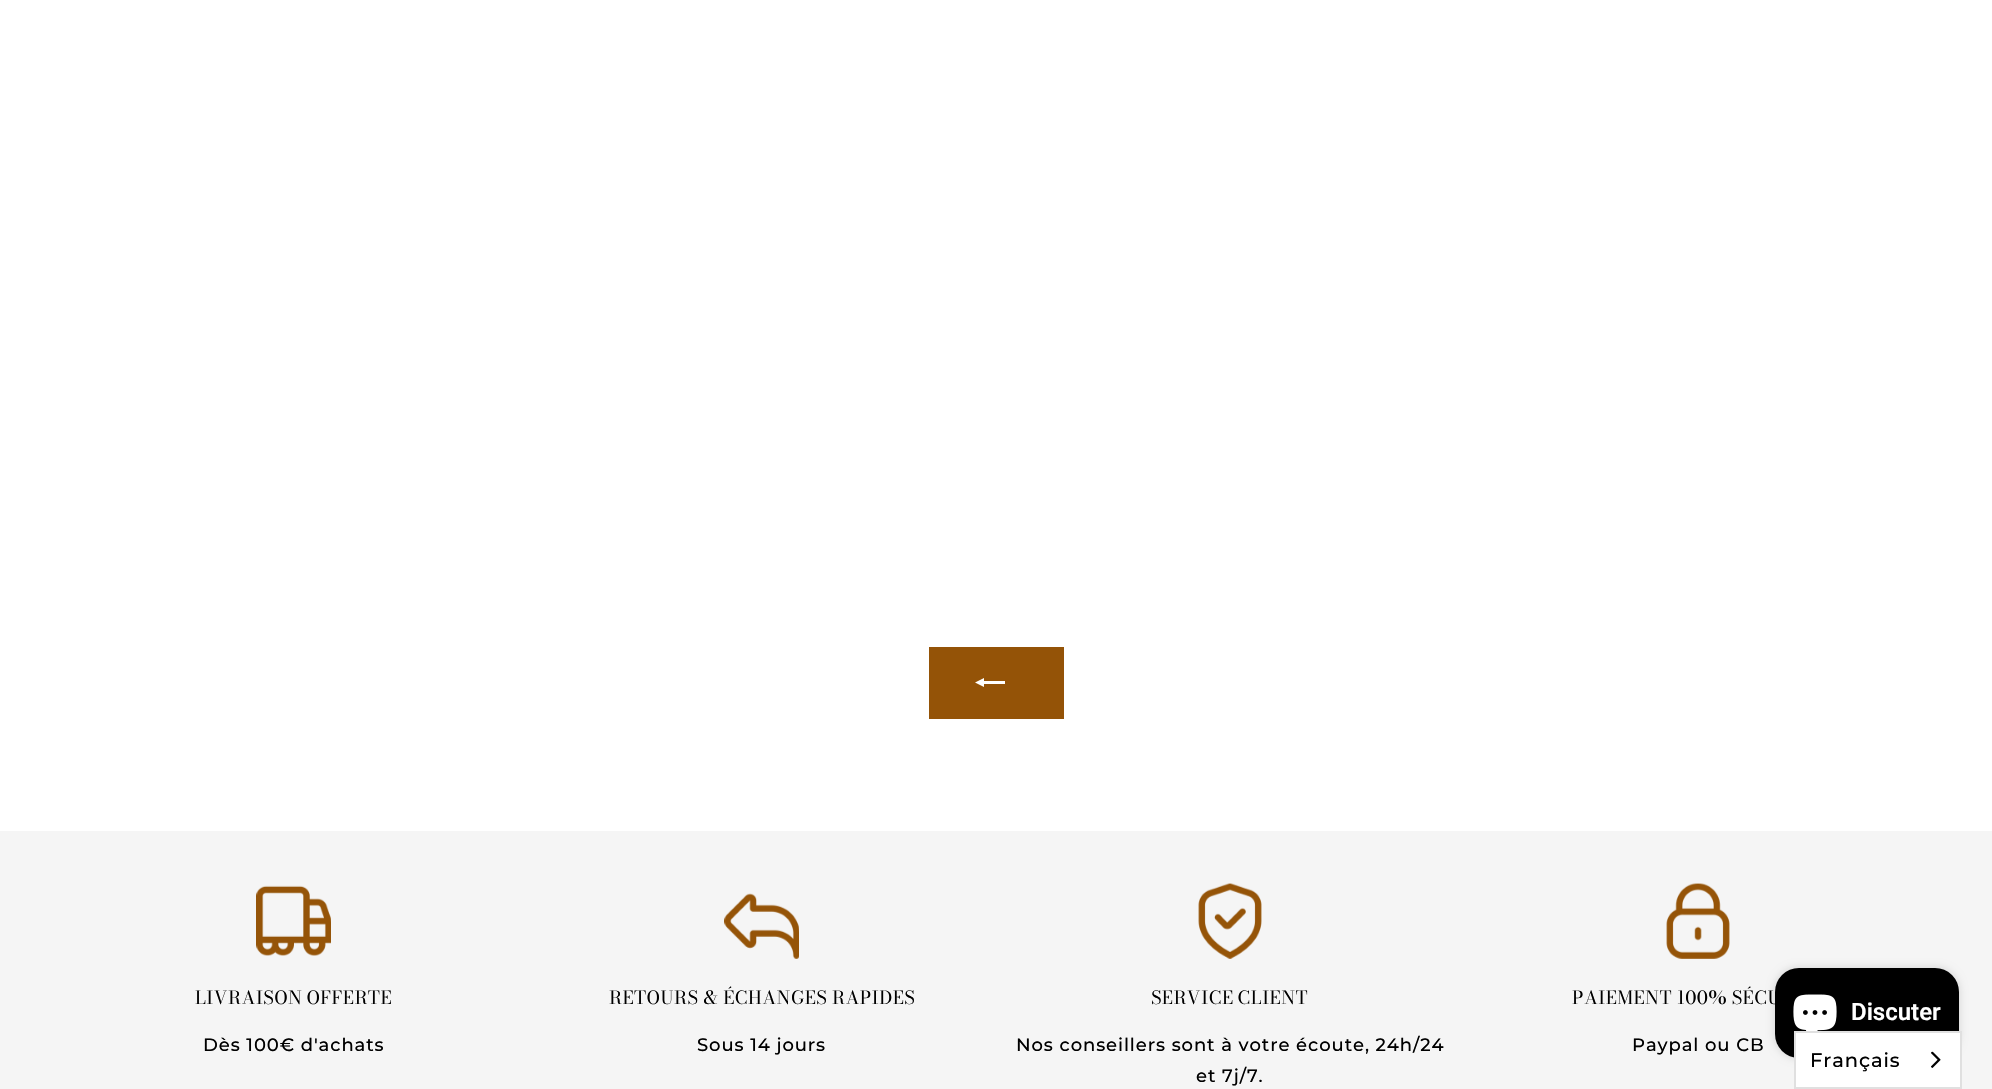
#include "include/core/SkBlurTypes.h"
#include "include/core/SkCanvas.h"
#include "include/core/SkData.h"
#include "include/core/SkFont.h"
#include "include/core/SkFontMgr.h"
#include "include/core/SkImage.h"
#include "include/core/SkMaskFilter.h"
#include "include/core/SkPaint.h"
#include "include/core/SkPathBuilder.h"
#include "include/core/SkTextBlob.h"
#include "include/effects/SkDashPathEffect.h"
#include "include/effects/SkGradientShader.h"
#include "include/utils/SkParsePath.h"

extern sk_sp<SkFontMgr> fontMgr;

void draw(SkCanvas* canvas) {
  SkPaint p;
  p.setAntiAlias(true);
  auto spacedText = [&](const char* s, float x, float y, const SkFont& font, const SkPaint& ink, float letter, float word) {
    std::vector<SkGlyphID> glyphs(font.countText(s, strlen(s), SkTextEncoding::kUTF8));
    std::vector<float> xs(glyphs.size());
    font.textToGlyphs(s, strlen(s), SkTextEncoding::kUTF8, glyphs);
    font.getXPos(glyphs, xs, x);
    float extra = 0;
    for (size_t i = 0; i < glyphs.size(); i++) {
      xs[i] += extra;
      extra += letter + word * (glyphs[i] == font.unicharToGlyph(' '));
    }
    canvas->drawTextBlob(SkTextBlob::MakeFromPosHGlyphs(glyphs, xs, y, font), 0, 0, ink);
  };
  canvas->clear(SK_ColorWHITE);
  p.setColor(SkColorSetRGB(148, 83, 7));
  canvas->drawRect(SkRect::MakeLTRB(929, 647, 1064, 719), p);
  p.setColor(SK_ColorWHITE);
  canvas->drawPath(SkPathBuilder().moveTo(1005, 681).lineTo(1005, 684).lineTo(984, 684).lineTo(984, 687).lineTo(975, 682.5f).lineTo(984, 678).lineTo(984, 681).close().detach(), p);
  p.setColor(SkColorSetRGB(245, 245, 245));
  canvas->drawRect(SkRect::MakeLTRB(0, 831, 1992, 1089), p);
  canvas->drawImageRect(SkImages::DeferredFromEncodedData(SkData::MakeFromFileName("images/1.png")), SkRect::MakeLTRB(256, 885, 331, 956), SkSamplingOptions());
  canvas->drawImageRect(SkImages::DeferredFromEncodedData(SkData::MakeFromFileName("images/2.png")), SkRect::MakeLTRB(724, 893, 799, 959), SkSamplingOptions());
  canvas->drawImageRect(SkImages::DeferredFromEncodedData(SkData::MakeFromFileName("images/3.png")), SkRect::MakeLTRB(1198, 883, 1262, 959), SkSamplingOptions());
  canvas->drawImageRect(SkImages::DeferredFromEncodedData(SkData::MakeFromFileName("images/4.png")), SkRect::MakeLTRB(1666, 883, 1730, 959), SkSamplingOptions());
  p.setColor(SkColorSetARGB(38, 0, 0, 0));
  p.setMaskFilter(SkMaskFilter::MakeBlur(kNormal_SkBlurStyle, 4));
  canvas->drawRoundRect(SkRect::MakeLTRB(1775, 968, 1959, 1058), 24, 24, p);
  p.setMaskFilter(nullptr);
  p.setColor(SK_ColorBLACK);
  canvas->drawRoundRect(SkRect::MakeLTRB(1775, 968, 1959, 1058), 24, 24, p);
  canvas->drawImageRect(SkImages::DeferredFromEncodedData(SkData::MakeFromFileName("images/5.png")), SkRect::MakeLTRB(1793, 994, 1837, 1031), SkSamplingOptions());
  p.setColor(SK_ColorWHITE);
  canvas->drawRect(SkRect::MakeLTRB(1795, 1032, 1961, 1088), p);
  p.setStyle(SkPaint::kStroke_Style);
  p.setStrokeWidth(2);
  p.setColor(SkColorSetRGB(224, 224, 224));
  canvas->drawRect(SkRect::MakeLTRB(1795, 1032, 1961, 1088), p);
  canvas->drawImageRect(SkImages::DeferredFromEncodedData(SkData::MakeFromFileName("images/6.png")), SkRect::MakeLTRB(1931, 1051, 1941, 1068), SkSamplingOptions());
  SkFont font1(fontMgr->matchFamilyStyle("Bodoni Moda", SkFontStyle::Normal()), 18);
  font1.setSubpixel(true);
  p.setStyle(SkPaint::kFill_Style);
  p.setColor(SK_ColorBLACK);
  spacedText("LIVRAISON OFFERTE", 195, 1004, font1, p, 0.45f, -1);
  SkFont font2(fontMgr->matchFamilyStyle("Montserrat", SkFontStyle(500, SkFontStyle::kNormal_Width, SkFontStyle::kUpright_Slant)), 18);
  font2.setSubpixel(true);
  spacedText("Dès 100€ d'achats", 203, 1051, font2, p, 0.9f, 0);
  spacedText("RETOURS & ÉCHANGES RAPIDES", 609, 1004, font1, p, 0.45f, 0);
  spacedText("Sous 14 jours", 697, 1051, font2, p, 0.9f, 0);
  spacedText("SERVICE CLIENT", 1151, 1004, font1, p, 0.45f, -1);
  spacedText("Nos conseillers sont à votre écoute, 24h/24", 1016, 1051, font2, p, 0.9f, 0);
  spacedText("et 7j/7.", 1196, 1082, font2, p, 0.9f, 0);
  spacedText("PAIEMENT 100% SÉCU", 1572, 1004, font1, p, 0.45f, 0);
  spacedText("Paypal ou CB", 1632, 1051, font2, p, 0.9f, 0);
  SkFont font3(fontMgr->matchFamilyStyle("Roboto", SkFontStyle(600, SkFontStyle::kNormal_Width, SkFontStyle::kUpright_Slant)), 24);
  font3.setSubpixel(true);
  p.setColor(SK_ColorWHITE);
  canvas->drawString("Discuter", 1851, 1020, font3, p);
  SkFont font4(fontMgr->matchFamilyStyle("Montserrat", SkFontStyle(500, SkFontStyle::kNormal_Width, SkFontStyle::kUpright_Slant)), 19.5f);
  font4.setSubpixel(true);
  p.setColor(SK_ColorBLACK);
  spacedText("Français", 1810, 1067, font4, p, 0.9f, 0);
}
